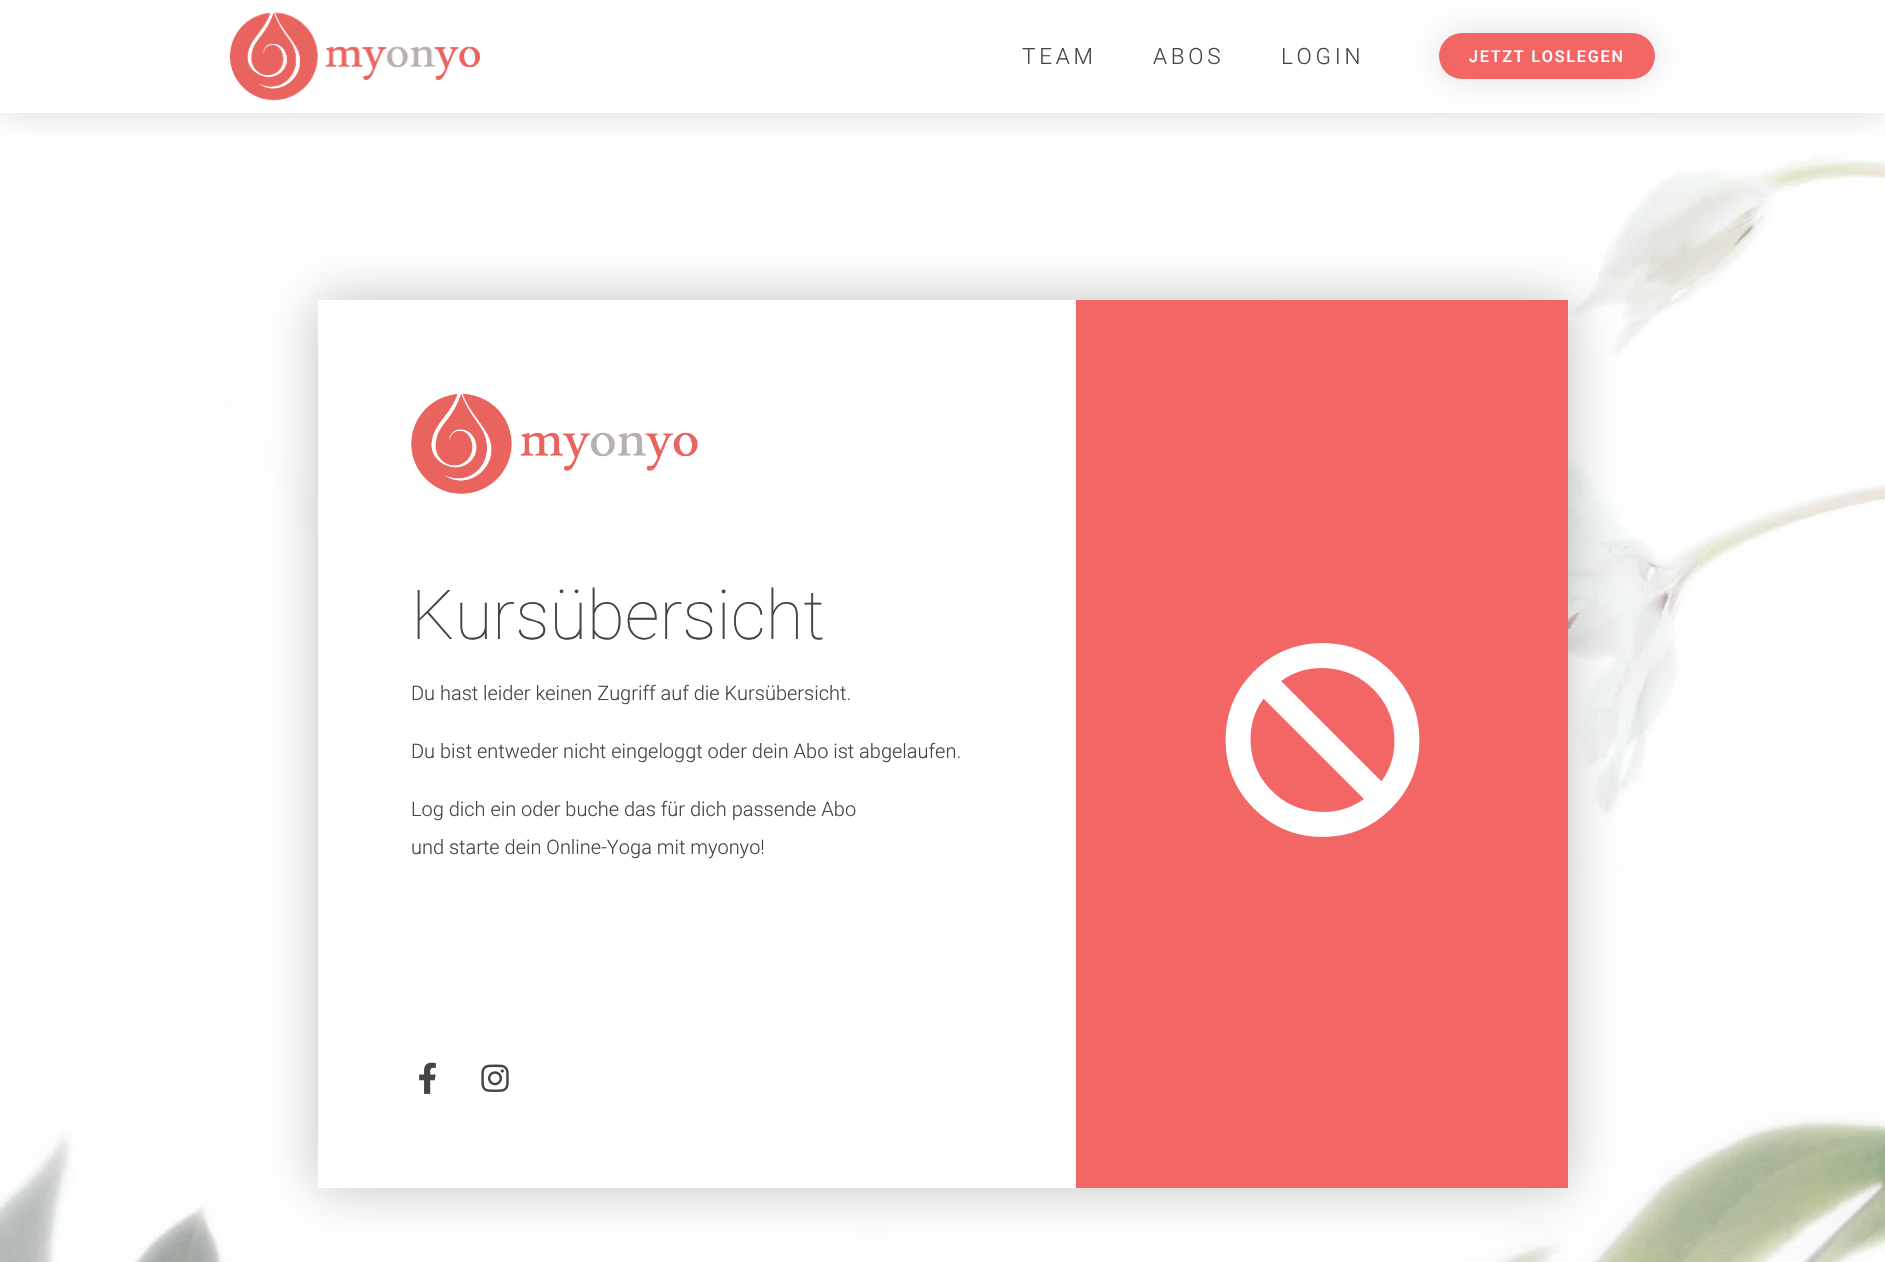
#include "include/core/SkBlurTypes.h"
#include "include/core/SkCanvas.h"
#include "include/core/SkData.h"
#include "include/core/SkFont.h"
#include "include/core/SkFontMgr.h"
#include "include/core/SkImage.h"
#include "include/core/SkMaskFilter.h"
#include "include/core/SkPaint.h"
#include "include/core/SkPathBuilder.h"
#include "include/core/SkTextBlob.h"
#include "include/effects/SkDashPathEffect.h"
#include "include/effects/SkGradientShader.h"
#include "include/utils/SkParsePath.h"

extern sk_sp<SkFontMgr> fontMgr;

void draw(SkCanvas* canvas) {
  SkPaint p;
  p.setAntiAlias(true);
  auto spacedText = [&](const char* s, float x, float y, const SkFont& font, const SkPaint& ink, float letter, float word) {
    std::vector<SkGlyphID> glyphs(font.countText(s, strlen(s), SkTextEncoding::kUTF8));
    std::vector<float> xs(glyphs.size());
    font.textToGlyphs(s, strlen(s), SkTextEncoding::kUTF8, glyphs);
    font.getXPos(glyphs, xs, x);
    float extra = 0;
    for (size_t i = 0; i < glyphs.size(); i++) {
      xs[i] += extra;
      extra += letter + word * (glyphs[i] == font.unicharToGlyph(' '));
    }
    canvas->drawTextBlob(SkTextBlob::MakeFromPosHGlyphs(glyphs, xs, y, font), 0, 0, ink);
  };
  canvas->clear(SK_ColorWHITE);
  canvas->drawImageRect(SkImages::DeferredFromEncodedData(SkData::MakeFromFileName("images/2.png")), SkRect::MakeLTRB(0, 152, 1885, 1262), SkSamplingOptions());
  p.setColor(SkColorSetARGB(38, 0, 0, 0));
  p.setMaskFilter(SkMaskFilter::MakeBlur(kNormal_SkBlurStyle, 15));
  canvas->drawRect(SkRect::MakeLTRB(0, 0, 1885, 113), p);
  p.setMaskFilter(nullptr);
  p.setColor(SK_ColorWHITE);
  canvas->drawRect(SkRect::MakeLTRB(0, 0, 1885, 113), p);
  canvas->drawImageRect(SkImages::DeferredFromEncodedData(SkData::MakeFromFileName("images/1.png")), SkRect::MakeLTRB(230, 12, 480, 101), SkSamplingOptions());
  p.setColor(SkColorSetARGB(31, 0, 0, 0));
  p.setMaskFilter(SkMaskFilter::MakeBlur(kNormal_SkBlurStyle, 17));
  canvas->drawRoundRect(SkRect::MakeLTRB(1439, 33, 1655, 79), 23, 23, p);
  p.setMaskFilter(nullptr);
  p.setColor(SkColorSetRGB(242, 102, 101));
  canvas->drawRoundRect(SkRect::MakeLTRB(1439, 33, 1655, 79), 23, 23, p);
  p.setColor(SkColorSetARGB(61, 0, 0, 0));
  p.setMaskFilter(SkMaskFilter::MakeBlur(kNormal_SkBlurStyle, 25));
  canvas->drawRect(SkRect::MakeLTRB(318, 300, 1568, 1188), p);
  p.setMaskFilter(nullptr);
  p.setColor(SK_ColorWHITE);
  canvas->drawRect(SkRect::MakeLTRB(318, 300, 1076, 1188), p);
  canvas->drawImageRect(SkImages::DeferredFromEncodedData(SkData::MakeFromFileName("images/3.png")), SkRect::MakeLTRB(411, 393, 698, 494), SkSamplingOptions());
  canvas->drawImageRect(SkImages::DeferredFromEncodedData(SkData::MakeFromFileName("images/4.png")), SkRect::MakeLTRB(419, 1062, 436, 1094), SkSamplingOptions());
  canvas->drawImageRect(SkImages::DeferredFromEncodedData(SkData::MakeFromFileName("images/5.png")), SkRect::MakeLTRB(481, 1064, 509, 1092), SkSamplingOptions());
  p.setColor(SkColorSetRGB(242, 102, 101));
  canvas->drawRect(SkRect::MakeLTRB(1076, 300, 1568, 1188), p);
  canvas->drawImageRect(SkImages::DeferredFromEncodedData(SkData::MakeFromFileName("images/6.png")), SkRect::MakeLTRB(1225, 643, 1420, 837), SkSamplingOptions());
  SkFont font1(fontMgr->matchFamilyStyle("Roboto", SkFontStyle(300, SkFontStyle::kNormal_Width, SkFontStyle::kUpright_Slant)), 22.5f);
  font1.setSubpixel(true);
  p.setColor(SkColorSetRGB(68, 68, 68));
  spacedText("TEAM", 1022, 64, font1, p, 3.75f, 0);
  spacedText("ABOS", 1153, 64, font1, p, 3.75f, 0);
  spacedText("LOGIN", 1281, 64, font1, p, 3.75f, 0);
  SkFont font2(fontMgr->matchFamilyStyle("Roboto", SkFontStyle(500, SkFontStyle::kNormal_Width, SkFontStyle::kUpright_Slant)), 16.25f);
  font2.setSubpixel(true);
  p.setColor(SK_ColorWHITE);
  spacedText("JETZT LOSLEGEN", 1469, 62, font2, p, 1.75f, 0);
  SkFont font3(fontMgr->matchFamilyStyle("Roboto", SkFontStyle(100, SkFontStyle::kNormal_Width, SkFontStyle::kUpright_Slant)), 68.75f);
  font3.setSubpixel(true);
  p.setColor(SkColorSetRGB(68, 68, 68));
  canvas->drawString("Kursübersicht", 411, 639, font3, p);
  SkFont font4(fontMgr->matchFamilyStyle("Roboto", SkFontStyle(300, SkFontStyle::kNormal_Width, SkFontStyle::kUpright_Slant)), 20);
  font4.setSubpixel(true);
  canvas->drawString("Du hast leider keinen Zugriff auf die Kursübersicht.", 411, 700, font4, p);
  canvas->drawString("Du bist entweder nicht eingeloggt oder dein Abo ist abgelaufen.", 411, 758, font4, p);
  canvas->drawString("Log dich ein oder buche das für dich passende Abo", 411, 816, font4, p);
  canvas->drawString("und starte dein Online-Yoga mit myonyo!", 411, 854, font4, p);
}
